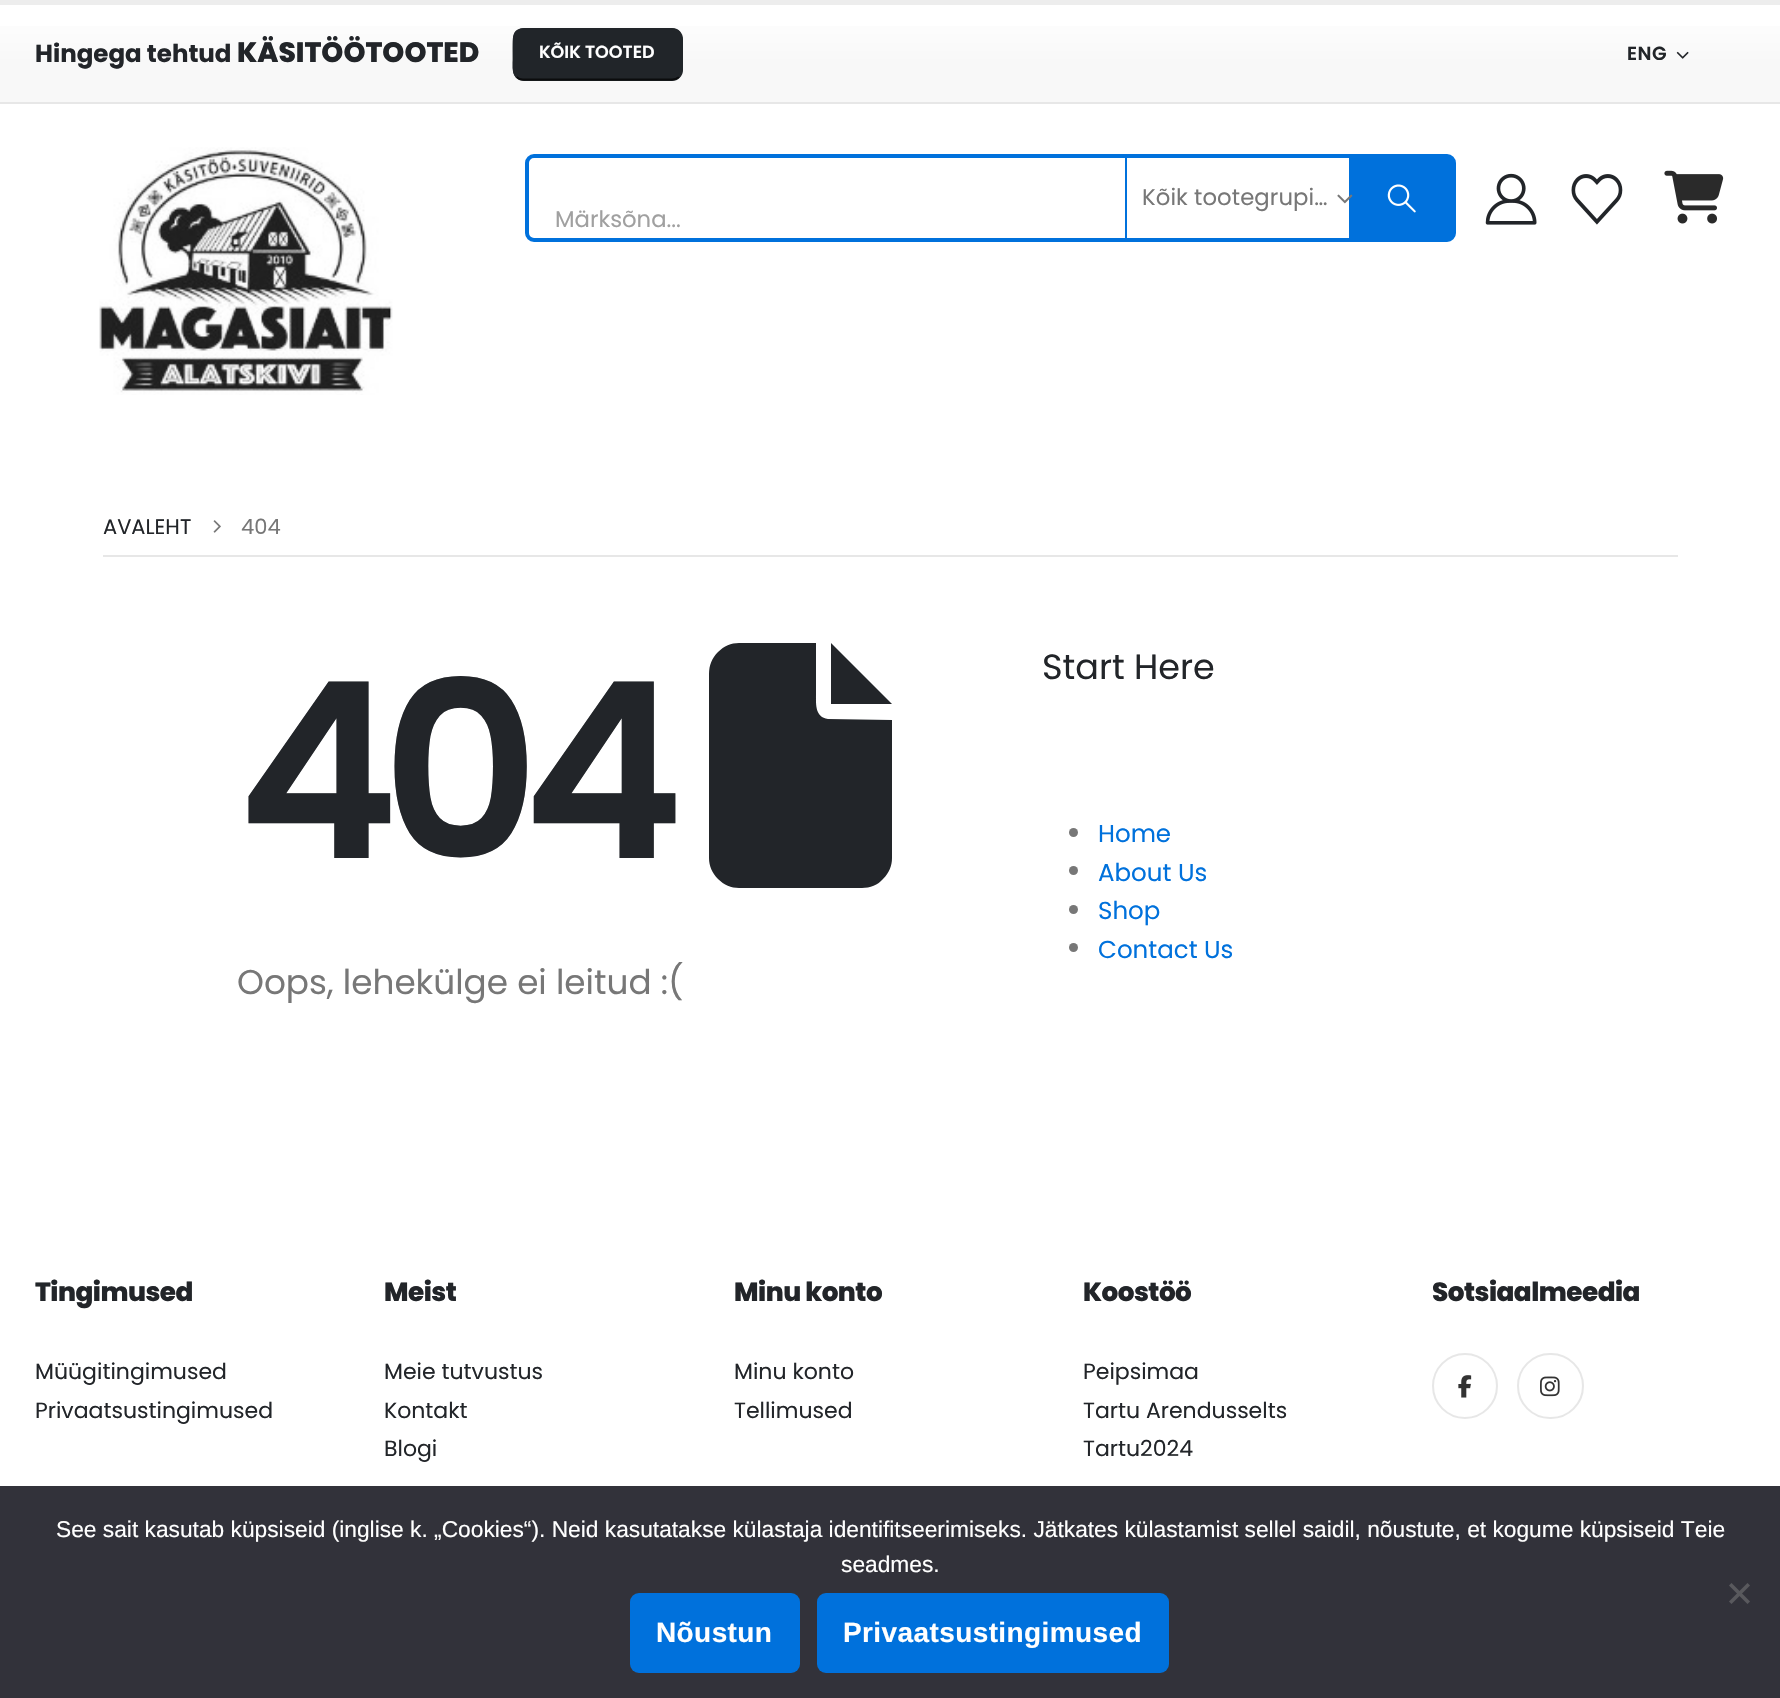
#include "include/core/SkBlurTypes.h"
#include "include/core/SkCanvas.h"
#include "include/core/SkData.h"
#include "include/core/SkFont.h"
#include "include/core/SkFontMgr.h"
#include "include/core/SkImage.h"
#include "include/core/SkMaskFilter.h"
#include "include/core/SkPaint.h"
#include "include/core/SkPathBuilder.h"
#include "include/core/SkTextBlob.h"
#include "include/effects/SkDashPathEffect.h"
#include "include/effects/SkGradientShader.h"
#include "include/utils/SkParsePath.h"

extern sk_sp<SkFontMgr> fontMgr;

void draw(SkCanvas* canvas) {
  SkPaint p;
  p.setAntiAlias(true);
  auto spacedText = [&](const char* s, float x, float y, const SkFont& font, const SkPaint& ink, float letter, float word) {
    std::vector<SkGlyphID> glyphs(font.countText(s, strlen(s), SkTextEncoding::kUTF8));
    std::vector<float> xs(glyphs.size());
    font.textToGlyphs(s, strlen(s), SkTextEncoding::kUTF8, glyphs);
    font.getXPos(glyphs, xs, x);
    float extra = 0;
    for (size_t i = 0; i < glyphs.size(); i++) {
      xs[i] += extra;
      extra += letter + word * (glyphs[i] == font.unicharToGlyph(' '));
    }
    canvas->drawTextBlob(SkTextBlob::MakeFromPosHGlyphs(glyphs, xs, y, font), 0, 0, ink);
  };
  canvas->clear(SK_ColorWHITE);
  p.setColor(SkColorSetRGB(237, 237, 237));
  canvas->drawRect(SkRect::MakeLTRB(0, 0, 1780, 5), p);
  {
    const SkColor colors[] = {SkColorSetRGB(248, 248, 248), SK_ColorWHITE};
    const float stops[] = {0.4f, 1};
    const SkPoint ends[] = {{891, 102}, {891, 5.2f}};
    p.setShader(SkGradientShader::MakeLinear(ends, colors, stops, 2, SkTileMode::kClamp));
    p.setAlpha(255);
  }
  canvas->drawRect(SkRect::MakeLTRB(0, 26, 1780, 102), p);
  p.setShader(nullptr);
  p.setColor(SkColorSetRGB(231, 231, 231));
  canvas->drawRect(SkRect::MakeLTRB(0, 102, 1780, 104), p);
  p.setColor(SkColorSetRGB(33, 37, 41));
  canvas->drawRoundRect(SkRect::MakeLTRB(513, 28, 683, 81), 11, 11, p);
  p.setStyle(SkPaint::kStroke_Style);
  p.setStrokeWidth(1.8f);
  p.setColor(SkColorSetRGB(11, 12, 13));
  canvas->drawPath(SkPathBuilder().moveTo(679, 77).cubicTo(677, 78.5f, 674.5f, 79.5f, 672, 79.5f).lineTo(523, 79.5f).cubicTo(520.5f, 79.5f, 518, 78.5f, 516.5f, 77).detach(), p);
  p.setColor(SkColorSetRGB(33, 37, 41));
  canvas->drawPath(SkPathBuilder().moveTo(516.5f, 77).cubicTo(512, 72.5f, 513.5f, 65, 513.5f, 59.5f).cubicTo(513.5f, 24.5f, 510.5f, 29, 548, 29).lineTo(647, 29).cubicTo(684.5f, 29, 681.5f, 24.5f, 681.5f, 59.5f).cubicTo(681.5f, 65, 683, 72.5f, 679, 77).detach(), p);
  canvas->drawImageRect(SkImages::DeferredFromEncodedData(SkData::MakeFromFileName("images/1.png")), SkRect::MakeLTRB(1676, 51, 1689, 59), SkSamplingOptions());
  canvas->drawImageRect(SkImages::DeferredFromEncodedData(SkData::MakeFromFileName("images/2.png")), SkRect::MakeLTRB(99, 147, 393, 395), SkSamplingOptions());
  p.setStrokeWidth(4);
  p.setColor(SkColorSetRGB(0, 113, 220));
  canvas->drawRoundRect(SkRect::MakeLTRB(527, 156, 1454, 240), 7, 7, p);
  p.setStyle(SkPaint::kFill_Style);
  canvas->drawRect(SkRect::MakeLTRB(1125, 158, 1127, 238), p);
  canvas->drawRect(SkRect::MakeLTRB(1349, 158, 1452, 238), p);
  canvas->drawImageRect(SkImages::DeferredFromEncodedData(SkData::MakeFromFileName("images/3.png")), SkRect::MakeLTRB(1337, 194, 1353, 204), SkSamplingOptions());
  canvas->drawImageRect(SkImages::DeferredFromEncodedData(SkData::MakeFromFileName("images/4.png")), SkRect::MakeLTRB(1387, 184, 1416, 213), SkSamplingOptions());
  canvas->drawImageRect(SkImages::DeferredFromEncodedData(SkData::MakeFromFileName("images/5.png")), SkRect::MakeLTRB(1485, 173, 1537, 225), SkSamplingOptions());
  canvas->drawImageRect(SkImages::DeferredFromEncodedData(SkData::MakeFromFileName("images/6.png")), SkRect::MakeLTRB(1571, 174, 1623, 225), SkSamplingOptions());
  canvas->drawImageRect(SkImages::DeferredFromEncodedData(SkData::MakeFromFileName("images/7.png")), SkRect::MakeLTRB(1664, 170, 1724, 224), SkSamplingOptions());
  p.setColor(SkColorSetRGB(231, 231, 231));
  canvas->drawRect(SkRect::MakeLTRB(103, 555, 1678, 557), p);
  canvas->drawImageRect(SkImages::DeferredFromEncodedData(SkData::MakeFromFileName("images/8.png")), SkRect::MakeLTRB(213, 520, 221, 533), SkSamplingOptions());
  p.setColor(SkColorSetRGB(34, 37, 41));
  canvas->drawPath(SkPathBuilder().moveTo(709, 674).cubicTo(709, 665, 712, 658, 718, 652).cubicTo(724, 646, 731, 643, 739, 643).lineTo(816, 643).lineTo(816, 694).cubicTo(816, 705, 815, 717, 828, 719).lineTo(892, 720).lineTo(892, 858).cubicTo(892, 866, 889, 873, 883, 879).cubicTo(878, 885, 870, 888, 862, 888).lineTo(739, 888).cubicTo(731, 888, 724, 885, 718, 879).cubicTo(712, 873, 709, 866, 709, 858).close().moveTo(892, 704).lineTo(831, 704).lineTo(892, 704).lineTo(831, 704).lineTo(831, 643).close().detach(), p);
  p.setColor(SkColorSetRGB(119, 119, 119));
  canvas->drawCircle(1073.5f, 832.5f, 4.5f, p);
  canvas->drawCircle(1073.5f, 870.5f, 4.5f, p);
  canvas->drawCircle(1073.5f, 909.5f, 4.5f, p);
  canvas->drawCircle(1073.5f, 947.5f, 4.5f, p);
  p.setStyle(SkPaint::kStroke_Style);
  p.setStrokeWidth(2);
  p.setColor(SkColorSetRGB(231, 231, 231));
  canvas->drawCircle(1465, 1386, 32, p);
  canvas->drawImageRect(SkImages::DeferredFromEncodedData(SkData::MakeFromFileName("images/9.png")), SkRect::MakeLTRB(1458, 1375, 1472, 1398), SkSamplingOptions());
  canvas->drawRoundRect(SkRect::MakeLTRB(1518, 1354, 1583, 1418), 32, 32, p);
  canvas->drawImageRect(SkImages::DeferredFromEncodedData(SkData::MakeFromFileName("images/10.png")), SkRect::MakeLTRB(1540, 1376, 1560, 1397), SkSamplingOptions());
  p.setStyle(SkPaint::kFill_Style);
  p.setColor(SkColorSetRGB(50, 50, 58));
  canvas->drawRect(SkRect::MakeLTRB(0, 1486, 1780, 1698), p);
  p.setColor(SkColorSetRGB(89, 89, 93));
  canvas->drawPath(SkPathBuilder().moveTo(1747.5f, 1583).lineTo(1750, 1585.5f).lineTo(1731.5f, 1604).lineTo(1729, 1601.5f).close().detach(), p);
  canvas->drawPath(SkPathBuilder().moveTo(1729, 1585.5f).lineTo(1731.5f, 1583).lineTo(1750, 1601.5f).lineTo(1747.5f, 1604).close().detach(), p);
  p.setColor(SkColorSetRGB(0, 113, 220));
  canvas->drawRoundRect(SkRect::MakeLTRB(630, 1593, 800, 1673), 9, 9, p);
  canvas->drawRoundRect(SkRect::MakeLTRB(817, 1593, 1169, 1673), 9, 9, p);
  SkFont font1(fontMgr->matchFamilyStyle("Poppins", SkFontStyle::Bold()), 24.5f);
  font1.setSubpixel(true);
  p.setColor(SkColorSetRGB(34, 37, 41));
  canvas->drawString("Hingega tehtud", 35, 62, font1, p);
  SkFont font2(fontMgr->matchFamilyStyle("Poppins", SkFontStyle(800, SkFontStyle::kNormal_Width, SkFontStyle::kUpright_Slant)), 28);
  font2.setSubpixel(true);
  canvas->drawString("KÄSITÖÖTOOTED", 237, 62, font2, p);
  SkFont font3(fontMgr->matchFamilyStyle("Poppins", SkFontStyle(600, SkFontStyle::kNormal_Width, SkFontStyle::kUpright_Slant)), 17.5f);
  font3.setSubpixel(true);
  p.setColor(SK_ColorWHITE);
  canvas->drawString("KÕIK TOOTED", 539, 58, font3, p);
  SkFont font4(fontMgr->matchFamilyStyle("Poppins", SkFontStyle(600, SkFontStyle::kNormal_Width, SkFontStyle::kUpright_Slant)), 19);
  font4.setSubpixel(true);
  p.setColor(SkColorSetRGB(34, 37, 41));
  spacedText("ENG", 1627, 60, font4, p, 0.5f, 0);
  SkFont font5(fontMgr->matchFamilyStyle("Poppins", SkFontStyle::Normal()), 22.75f);
  font5.setSubpixel(true);
  p.setColor(SkColorSetRGB(119, 119, 119));
  spacedText("Kõik tootegrupi…", 1142, 205, font5, p, 0.1f, 0);
  p.setColor(SkColorSetRGB(160, 160, 160));
  canvas->drawString("Märksõna...", 555, 227, font5, p);
  SkFont font6(fontMgr->matchFamilyStyle("Poppins", SkFontStyle::Normal()), 21);
  font6.setSubpixel(true);
  p.setColor(SkColorSetRGB(34, 37, 41));
  canvas->drawString("AVALEHT", 103, 534, font6, p);
  p.setColor(SkColorSetRGB(119, 119, 119));
  canvas->drawString("404", 241, 534, font6, p);
  SkFont font7(fontMgr->matchFamilyStyle("Poppins", SkFontStyle(600, SkFontStyle::kNormal_Width, SkFontStyle::kUpright_Slant)), 245);
  font7.setSubpixel(true);
  p.setColor(SkColorSetRGB(34, 37, 41));
  spacedText("404", 237, 858, font7, p, -17.5f, 0);
  SkFont font8(fontMgr->matchFamilyStyle("Poppins", SkFontStyle::Normal()), 34.25f);
  font8.setSubpixel(true);
  p.setColor(SkColorSetRGB(119, 119, 119));
  canvas->drawString("Oops, lehekülge ei leitud :(", 237, 994, font8, p);
  SkFont font9(fontMgr->matchFamilyStyle("Poppins", SkFontStyle::Normal()), 35);
  font9.setSubpixel(true);
  p.setColor(SkColorSetRGB(34, 37, 41));
  canvas->drawString("Start Here", 1042, 679, font9, p);
  SkFont font10(fontMgr->matchFamilyStyle("Poppins", SkFontStyle::Normal()), 24.5f);
  font10.setSubpixel(true);
  p.setColor(SkColorSetRGB(0, 113, 220));
  canvas->drawString("Home", 1098, 842, font10, p);
  canvas->drawString("About Us", 1098, 881, font10, p);
  canvas->drawString("Shop", 1098, 919, font10, p);
  canvas->drawString("Contact Us", 1098, 958, font10, p);
  SkFont font11(fontMgr->matchFamilyStyle("Poppins", SkFontStyle(800, SkFontStyle::kNormal_Width, SkFontStyle::kUpright_Slant)), 26.25f);
  font11.setSubpixel(true);
  p.setColor(SkColorSetRGB(34, 37, 41));
  spacedText("Tingimused", 35, 1301, font11, p, -0.5f, 0);
  SkFont font12(fontMgr->matchFamilyStyle("Poppins", SkFontStyle::Normal()), 22);
  font12.setSubpixel(true);
  canvas->drawString("Müügitingimused", 35, 1379, font12, p);
  canvas->drawString("Privaatsustingimused", 35, 1418, font12, p);
  spacedText("Meist", 384, 1301, font11, p, -0.5f, 0);
  canvas->drawString("Meie tutvustus", 384, 1379, font12, p);
  canvas->drawString("Kontakt", 384, 1418, font12, p);
  canvas->drawString("Blogi", 384, 1456, font12, p);
  spacedText("Minu konto", 734, 1301, font11, p, -0.5f, 0);
  canvas->drawString("Minu konto", 734, 1379, font12, p);
  canvas->drawString("Tellimused", 734, 1418, font12, p);
  spacedText("Koostöö", 1083, 1301, font11, p, -0.5f, 0);
  canvas->drawString("Peipsimaa", 1083, 1379, font12, p);
  canvas->drawString("Tartu Arendusselts", 1083, 1418, font12, p);
  canvas->drawString("Tartu2024", 1083, 1456, font12, p);
  spacedText("Sotsiaalmeedia", 1432, 1301, font11, p, -0.5f, 0);
  SkFont font13(fontMgr->matchFamilyStyle("Liberation Sans", SkFontStyle::Normal()), 22.75f);
  font13.setSubpixel(true);
  p.setColor(SK_ColorWHITE);
  canvas->drawString("See sait kasutab küpsiseid (inglise k. „Cookies“). Neid kasutatakse külastaja identifitseerimiseks. Jätkates külastamist sellel saidil, nõustute, et kogume küpsiseid Teie", 56, 1537, font13, p);
  canvas->drawString("seadmes.", 841, 1572, font13, p);
  SkFont font14(fontMgr->matchFamilyStyle("Liberation Sans", SkFontStyle::Bold()), 28);
  font14.setSubpixel(true);
  spacedText("Nõustun", 656, 1642, font14, p, 0.4f, 0);
  spacedText("Privaatsustingimused", 843, 1642, font14, p, 0.4f, 0);
}
